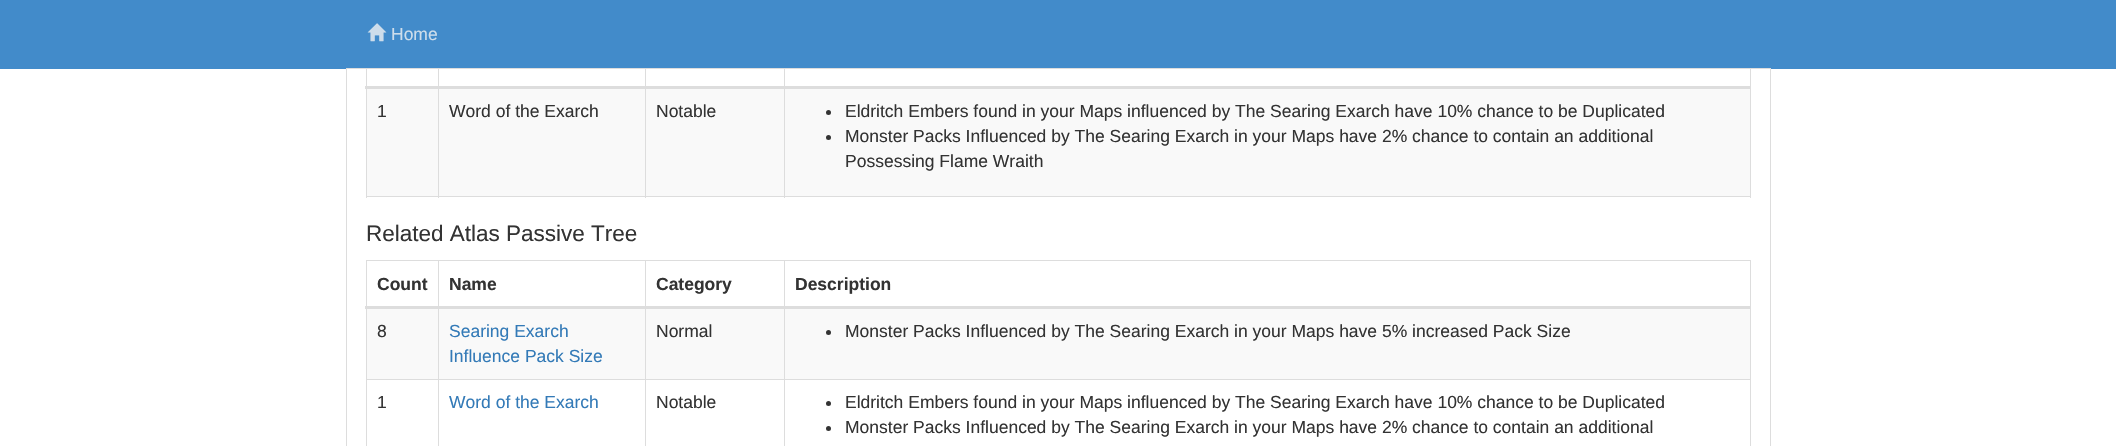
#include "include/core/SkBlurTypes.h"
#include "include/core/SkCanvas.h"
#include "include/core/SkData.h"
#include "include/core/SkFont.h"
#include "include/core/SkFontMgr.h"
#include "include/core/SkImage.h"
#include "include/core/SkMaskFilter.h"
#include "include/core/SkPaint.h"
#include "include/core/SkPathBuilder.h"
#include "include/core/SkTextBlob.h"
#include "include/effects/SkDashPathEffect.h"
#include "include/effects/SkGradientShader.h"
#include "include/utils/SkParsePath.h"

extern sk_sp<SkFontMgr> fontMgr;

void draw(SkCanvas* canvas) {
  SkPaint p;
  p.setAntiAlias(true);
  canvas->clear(SK_ColorWHITE);
  p.setStyle(SkPaint::kStroke_Style);
  p.setStrokeWidth(1);
  p.setColor(SkColorSetRGB(221, 221, 221));
  canvas->drawRect(SkRect::MakeLTRB(346.5f, -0.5f, 1770.5f, 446.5f), p);
  p.setStyle(SkPaint::kFill_Style);
  p.setColor(SkColorSetRGB(66, 139, 202));
  canvas->drawRect(SkRect::MakeLTRB(0, 0, 2116, 69), p);
  p.setColor(SkColorSetRGB(221, 221, 221));
  canvas->drawRect(SkRect::MakeLTRB(346, 68, 1771, 69), p);
  canvas->drawImageRect(SkImages::DeferredFromEncodedData(SkData::MakeFromFileName("images/1.png")), SkRect::MakeLTRB(367, 23, 387, 42), SkSamplingOptions());
  canvas->drawRect(SkRect::MakeLTRB(1750, 69, 1751, 198), p);
  canvas->drawRect(SkRect::MakeLTRB(366, 196, 1751, 197), p);
  canvas->drawRect(SkRect::MakeLTRB(366, 69, 367, 198), p);
  p.setColor(SkColorSetRGB(249, 249, 249));
  canvas->drawRect(SkRect::MakeLTRB(367, 89, 1750, 196), p);
  p.setColor(SkColorSetRGB(221, 221, 221));
  canvas->drawRect(SkRect::MakeLTRB(438, 69, 439, 198), p);
  canvas->drawRect(SkRect::MakeLTRB(645, 69, 646, 198), p);
  canvas->drawRect(SkRect::MakeLTRB(784, 69, 785, 198), p);
  canvas->drawRect(SkRect::MakeLTRB(365, 86, 1751, 89), p);
  p.setColor(SkColorSetRGB(51, 51, 51));
  canvas->drawCircle(828.5f, 112.5f, 2.5f, p);
  canvas->drawCircle(828.5f, 137.5f, 2.5f, p);
  p.setColor(SkColorSetRGB(221, 221, 221));
  canvas->drawRect(SkRect::MakeLTRB(366, 260, 1751, 261), p);
  canvas->drawRect(SkRect::MakeLTRB(1750, 260, 1751, 446), p);
  canvas->drawRect(SkRect::MakeLTRB(366, 260, 367, 446), p);
  p.setColor(SkColorSetRGB(249, 249, 249));
  canvas->drawRect(SkRect::MakeLTRB(367, 309, 1750, 379), p);
  p.setColor(SkColorSetRGB(221, 221, 221));
  canvas->drawRect(SkRect::MakeLTRB(784, 379, 1751, 380), p);
  canvas->drawRect(SkRect::MakeLTRB(784, 379, 785, 446), p);
  canvas->drawRect(SkRect::MakeLTRB(645, 379, 785, 380), p);
  canvas->drawRect(SkRect::MakeLTRB(645, 379, 646, 446), p);
  canvas->drawRect(SkRect::MakeLTRB(438, 379, 646, 380), p);
  canvas->drawRect(SkRect::MakeLTRB(438, 379, 439, 446), p);
  canvas->drawRect(SkRect::MakeLTRB(366, 379, 439, 380), p);
  canvas->drawRect(SkRect::MakeLTRB(438, 260, 439, 380), p);
  canvas->drawRect(SkRect::MakeLTRB(645, 260, 646, 380), p);
  canvas->drawRect(SkRect::MakeLTRB(784, 260, 785, 380), p);
  canvas->drawRect(SkRect::MakeLTRB(365, 306, 1751, 309), p);
  p.setColor(SkColorSetRGB(51, 51, 51));
  canvas->drawCircle(828.5f, 332.5f, 2.5f, p);
  canvas->drawCircle(828.5f, 403.5f, 2.5f, p);
  canvas->drawCircle(828.5f, 428.5f, 2.5f, p);
  SkFont font1(fontMgr->matchFamilyStyle("Liberation Sans", SkFontStyle::Normal()), 17.5f);
  font1.setSubpixel(true);
  p.setColor(SkColorSetRGB(205, 221, 235));
  canvas->drawString("Home", 391, 40, font1, p);
  p.setColor(SkColorSetRGB(51, 51, 51));
  canvas->drawString("1", 377, 117, font1, p);
  canvas->drawString("Word of the Exarch", 449, 117, font1, p);
  canvas->drawString("Notable", 656, 117, font1, p);
  canvas->drawString("Eldritch Embers found in your Maps influenced by The Searing Exarch have 10% chance to be Duplicated", 845, 117, font1, p);
  canvas->drawString("Monster Packs Influenced by The Searing Exarch in your Maps have 2% chance to contain an additional", 845, 142, font1, p);
  canvas->drawString("Possessing Flame Wraith", 845, 167, font1, p);
  SkFont font2(fontMgr->matchFamilyStyle("Liberation Sans", SkFontStyle::Normal()), 22.5f);
  font2.setSubpixel(true);
  canvas->drawString("Related Atlas Passive Tree", 366, 241, font2, p);
  SkFont font3(fontMgr->matchFamilyStyle("Liberation Sans", SkFontStyle::Bold()), 17.5f);
  font3.setSubpixel(true);
  canvas->drawString("Count", 377, 290, font3, p);
  canvas->drawString("Name", 449, 290, font3, p);
  canvas->drawString("Category", 656, 290, font3, p);
  canvas->drawString("Description", 795, 290, font3, p);
  canvas->drawString("8", 377, 337, font1, p);
  p.setColor(SkColorSetRGB(51, 122, 183));
  canvas->drawString("Searing Exarch", 449, 337, font1, p);
  canvas->drawString("Influence Pack Size", 449, 362, font1, p);
  p.setColor(SkColorSetRGB(51, 51, 51));
  canvas->drawString("Normal", 656, 337, font1, p);
  canvas->drawString("Monster Packs Influenced by The Searing Exarch in your Maps have 5% increased Pack Size", 845, 337, font1, p);
  canvas->drawString("1", 377, 408, font1, p);
  p.setColor(SkColorSetRGB(51, 122, 183));
  canvas->drawString("Word of the Exarch", 449, 408, font1, p);
  p.setColor(SkColorSetRGB(51, 51, 51));
  canvas->drawString("Notable", 656, 408, font1, p);
  canvas->drawString("Eldritch Embers found in your Maps influenced by The Searing Exarch have 10% chance to be Duplicated", 845, 408, font1, p);
  canvas->drawString("Monster Packs Influenced by The Searing Exarch in your Maps have 2% chance to contain an additional", 845, 433, font1, p);
}
